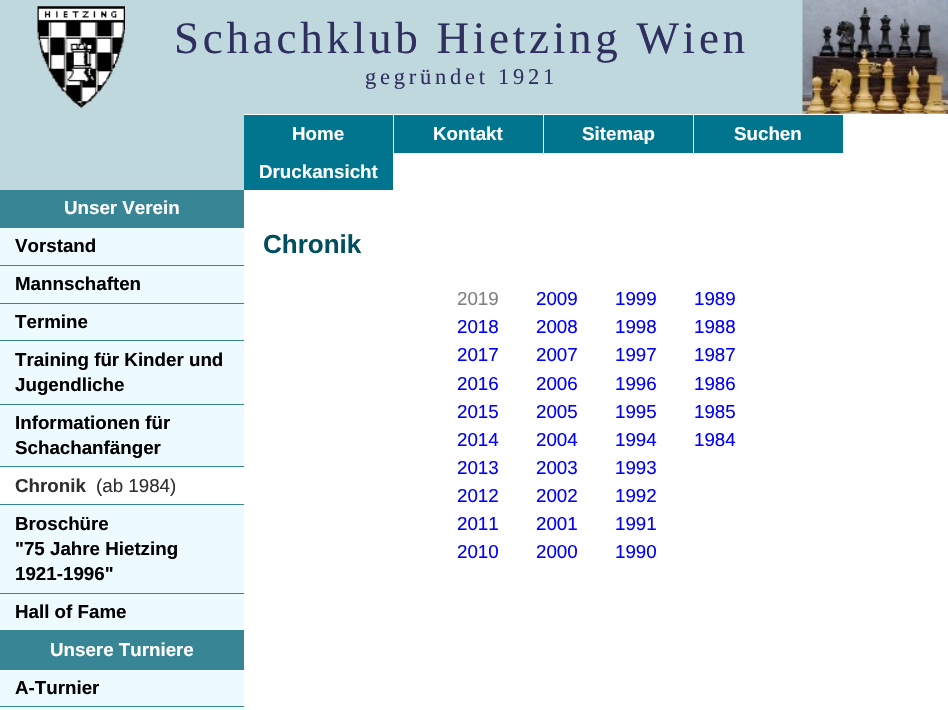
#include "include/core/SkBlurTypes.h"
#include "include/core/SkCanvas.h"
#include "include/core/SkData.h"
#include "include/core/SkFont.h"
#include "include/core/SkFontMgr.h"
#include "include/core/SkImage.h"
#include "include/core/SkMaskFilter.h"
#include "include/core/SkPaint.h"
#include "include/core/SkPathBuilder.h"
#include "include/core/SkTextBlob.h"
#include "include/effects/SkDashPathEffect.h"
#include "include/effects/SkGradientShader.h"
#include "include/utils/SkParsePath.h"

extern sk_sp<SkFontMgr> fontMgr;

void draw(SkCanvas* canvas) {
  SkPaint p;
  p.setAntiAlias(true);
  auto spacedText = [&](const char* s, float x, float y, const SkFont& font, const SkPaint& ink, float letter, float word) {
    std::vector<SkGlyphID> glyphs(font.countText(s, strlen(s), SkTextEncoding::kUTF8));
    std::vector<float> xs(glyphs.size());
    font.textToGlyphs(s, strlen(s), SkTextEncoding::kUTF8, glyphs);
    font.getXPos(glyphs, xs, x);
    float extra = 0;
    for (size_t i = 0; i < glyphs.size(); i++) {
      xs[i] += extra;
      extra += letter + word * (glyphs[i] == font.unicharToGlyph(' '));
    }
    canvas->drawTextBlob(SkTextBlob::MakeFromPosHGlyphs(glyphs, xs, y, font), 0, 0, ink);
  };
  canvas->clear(SkColorSetRGB(191, 216, 221));
  canvas->drawImageRect(SkImages::DeferredFromEncodedData(SkData::MakeFromFileName("images/1.png")), SkRect::MakeLTRB(802, 0, 948, 114), SkSamplingOptions());
  canvas->drawImageRect(SkImages::DeferredFromEncodedData(SkData::MakeFromFileName("images/2.png")), SkRect::MakeLTRB(37, 6, 125, 108), SkSamplingOptions());
  p.setColor(SK_ColorWHITE);
  canvas->drawRect(SkRect::MakeLTRB(244, 114, 948, 710), p);
  p.setColor(SkColorSetRGB(0, 117, 141));
  canvas->drawRect(SkRect::MakeLTRB(244, 115, 393, 190), p);
  canvas->drawRect(SkRect::MakeLTRB(394, 115, 543, 153), p);
  canvas->drawRect(SkRect::MakeLTRB(544, 115, 693, 153), p);
  canvas->drawRect(SkRect::MakeLTRB(694, 115, 843, 153), p);
  p.setColor(SkColorSetRGB(55, 133, 149));
  canvas->drawRect(SkRect::MakeLTRB(0, 190, 244, 228), p);
  p.setColor(SkColorSetRGB(237, 250, 254));
  canvas->drawRect(SkRect::MakeLTRB(0, 228, 244, 265), p);
  p.setColor(SkColorSetRGB(55, 133, 149));
  canvas->drawRect(SkRect::MakeLTRB(0, 265, 244, 266), p);
  p.setColor(SkColorSetRGB(237, 250, 254));
  canvas->drawRect(SkRect::MakeLTRB(0, 266, 244, 303), p);
  p.setColor(SkColorSetRGB(55, 133, 149));
  canvas->drawRect(SkRect::MakeLTRB(0, 303, 244, 304), p);
  p.setColor(SkColorSetRGB(237, 250, 254));
  canvas->drawRect(SkRect::MakeLTRB(0, 304, 244, 340), p);
  p.setColor(SkColorSetRGB(55, 133, 149));
  canvas->drawRect(SkRect::MakeLTRB(0, 340, 244, 341), p);
  p.setColor(SkColorSetRGB(237, 250, 254));
  canvas->drawRect(SkRect::MakeLTRB(0, 341, 244, 404), p);
  p.setColor(SkColorSetRGB(55, 133, 149));
  canvas->drawRect(SkRect::MakeLTRB(0, 404, 244, 405), p);
  p.setColor(SkColorSetRGB(237, 250, 254));
  canvas->drawRect(SkRect::MakeLTRB(0, 405, 244, 468), p);
  p.setColor(SkColorSetRGB(55, 133, 149));
  canvas->drawRect(SkRect::MakeLTRB(0, 466, 244, 467), p);
  p.setColor(SK_ColorWHITE);
  canvas->drawRect(SkRect::MakeLTRB(0, 468, 244, 504), p);
  p.setColor(SkColorSetRGB(55, 133, 149));
  canvas->drawRect(SkRect::MakeLTRB(0, 504, 244, 505), p);
  p.setColor(SkColorSetRGB(237, 250, 254));
  canvas->drawRect(SkRect::MakeLTRB(0, 505, 244, 593), p);
  p.setColor(SkColorSetRGB(55, 133, 149));
  canvas->drawRect(SkRect::MakeLTRB(0, 593, 244, 594), p);
  p.setColor(SkColorSetRGB(237, 250, 254));
  canvas->drawRect(SkRect::MakeLTRB(0, 594, 244, 630), p);
  p.setColor(SkColorSetRGB(55, 133, 149));
  canvas->drawRect(SkRect::MakeLTRB(0, 630, 244, 670), p);
  p.setColor(SkColorSetRGB(237, 250, 254));
  canvas->drawRect(SkRect::MakeLTRB(0, 670, 244, 710), p);
  p.setColor(SkColorSetRGB(55, 133, 149));
  canvas->drawRect(SkRect::MakeLTRB(0, 706, 244, 707), p);
  SkFont font1(fontMgr->matchFamilyStyle("Liberation Serif", SkFontStyle::Normal()), 45);
  font1.setSubpixel(true);
  p.setColor(SkColorSetRGB(48, 48, 96));
  spacedText("Schachklub Hietzing Wien", 174, 53, font1, p, 3.75f, 0);
  SkFont font2(fontMgr->matchFamilyStyle("Liberation Serif", SkFontStyle::Normal()), 22.5f);
  font2.setSubpixel(true);
  spacedText("gegründet 1921", 365, 84, font2, p, 3.75f, 0);
  SkFont font3(fontMgr->matchFamilyStyle("Liberation Sans", SkFontStyle::Bold()), 18.75f);
  font3.setSubpixel(true);
  p.setColor(SK_ColorWHITE);
  canvas->drawString("Home", 292, 140, font3, p);
  canvas->drawString("Kontakt", 433, 140, font3, p);
  canvas->drawString("Sitemap", 582, 140, font3, p);
  canvas->drawString("Suchen", 734, 140, font3, p);
  canvas->drawString("Druckansicht", 259, 178, font3, p);
  canvas->drawString("Unser Verein", 64, 214, font3, p);
  p.setColor(SK_ColorBLACK);
  canvas->drawString("Vorstand", 15, 252, font3, p);
  canvas->drawString("Mannschaften", 15, 290, font3, p);
  canvas->drawString("Termine", 15, 328, font3, p);
  canvas->drawString("Training für Kinder und", 15, 366, font3, p);
  canvas->drawString("Jugendliche", 15, 391, font3, p);
  canvas->drawString("Informationen für", 15, 429, font3, p);
  canvas->drawString("Schachanfänger", 15, 454, font3, p);
  p.setColor(SkColorSetRGB(48, 48, 48));
  canvas->drawString("Chronik", 15, 492, font3, p);
  SkFont font4(fontMgr->matchFamilyStyle("Liberation Sans", SkFontStyle::Normal()), 18.75f);
  font4.setSubpixel(true);
  canvas->drawString("(ab 1984)", 96, 492, font4, p);
  p.setColor(SK_ColorBLACK);
  canvas->drawString("Broschüre", 15, 530, font3, p);
  canvas->drawString("\"75 Jahre Hietzing", 15, 555, font3, p);
  canvas->drawString("1921-1996\"", 15, 580, font3, p);
  canvas->drawString("Hall of Fame", 15, 618, font3, p);
  p.setColor(SK_ColorWHITE);
  canvas->drawString("Unsere Turniere", 50, 656, font3, p);
  p.setColor(SK_ColorBLACK);
  canvas->drawString("A-Turnier", 15, 694, font3, p);
  SkFont font5(fontMgr->matchFamilyStyle("Liberation Sans", SkFontStyle::Bold()), 26);
  font5.setSubpixel(true);
  p.setColor(SkColorSetRGB(0, 78, 94));
  canvas->drawString("Chronik", 263, 253, font5, p);
  p.setColor(SkColorSetRGB(128, 128, 128));
  canvas->drawString("2019", 457, 305, font4, p);
  p.setColor(SkColorSetRGB(0, 0, 255));
  canvas->drawString("2018", 457, 333, font4, p);
  canvas->drawString("2017", 457, 361, font4, p);
  canvas->drawString("2016", 457, 390, font4, p);
  canvas->drawString("2015", 457, 418, font4, p);
  canvas->drawString("2014", 457, 446, font4, p);
  canvas->drawString("2013", 457, 474, font4, p);
  canvas->drawString("2012", 457, 502, font4, p);
  canvas->drawString("2011", 457, 530, font4, p);
  canvas->drawString("2010", 457, 558, font4, p);
  canvas->drawString("2009", 536, 305, font4, p);
  canvas->drawString("2008", 536, 333, font4, p);
  canvas->drawString("2007", 536, 361, font4, p);
  canvas->drawString("2006", 536, 390, font4, p);
  canvas->drawString("2005", 536, 418, font4, p);
  canvas->drawString("2004", 536, 446, font4, p);
  canvas->drawString("2003", 536, 474, font4, p);
  canvas->drawString("2002", 536, 502, font4, p);
  canvas->drawString("2001", 536, 530, font4, p);
  canvas->drawString("2000", 536, 558, font4, p);
  canvas->drawString("1999", 615, 305, font4, p);
  canvas->drawString("1998", 615, 333, font4, p);
  canvas->drawString("1997", 615, 361, font4, p);
  canvas->drawString("1996", 615, 390, font4, p);
  canvas->drawString("1995", 615, 418, font4, p);
  canvas->drawString("1994", 615, 446, font4, p);
  canvas->drawString("1993", 615, 474, font4, p);
  canvas->drawString("1992", 615, 502, font4, p);
  canvas->drawString("1991", 615, 530, font4, p);
  canvas->drawString("1990", 615, 558, font4, p);
  canvas->drawString("1989", 694, 305, font4, p);
  canvas->drawString("1988", 694, 333, font4, p);
  canvas->drawString("1987", 694, 361, font4, p);
  canvas->drawString("1986", 694, 390, font4, p);
  canvas->drawString("1985", 694, 418, font4, p);
  canvas->drawString("1984", 694, 446, font4, p);
}
